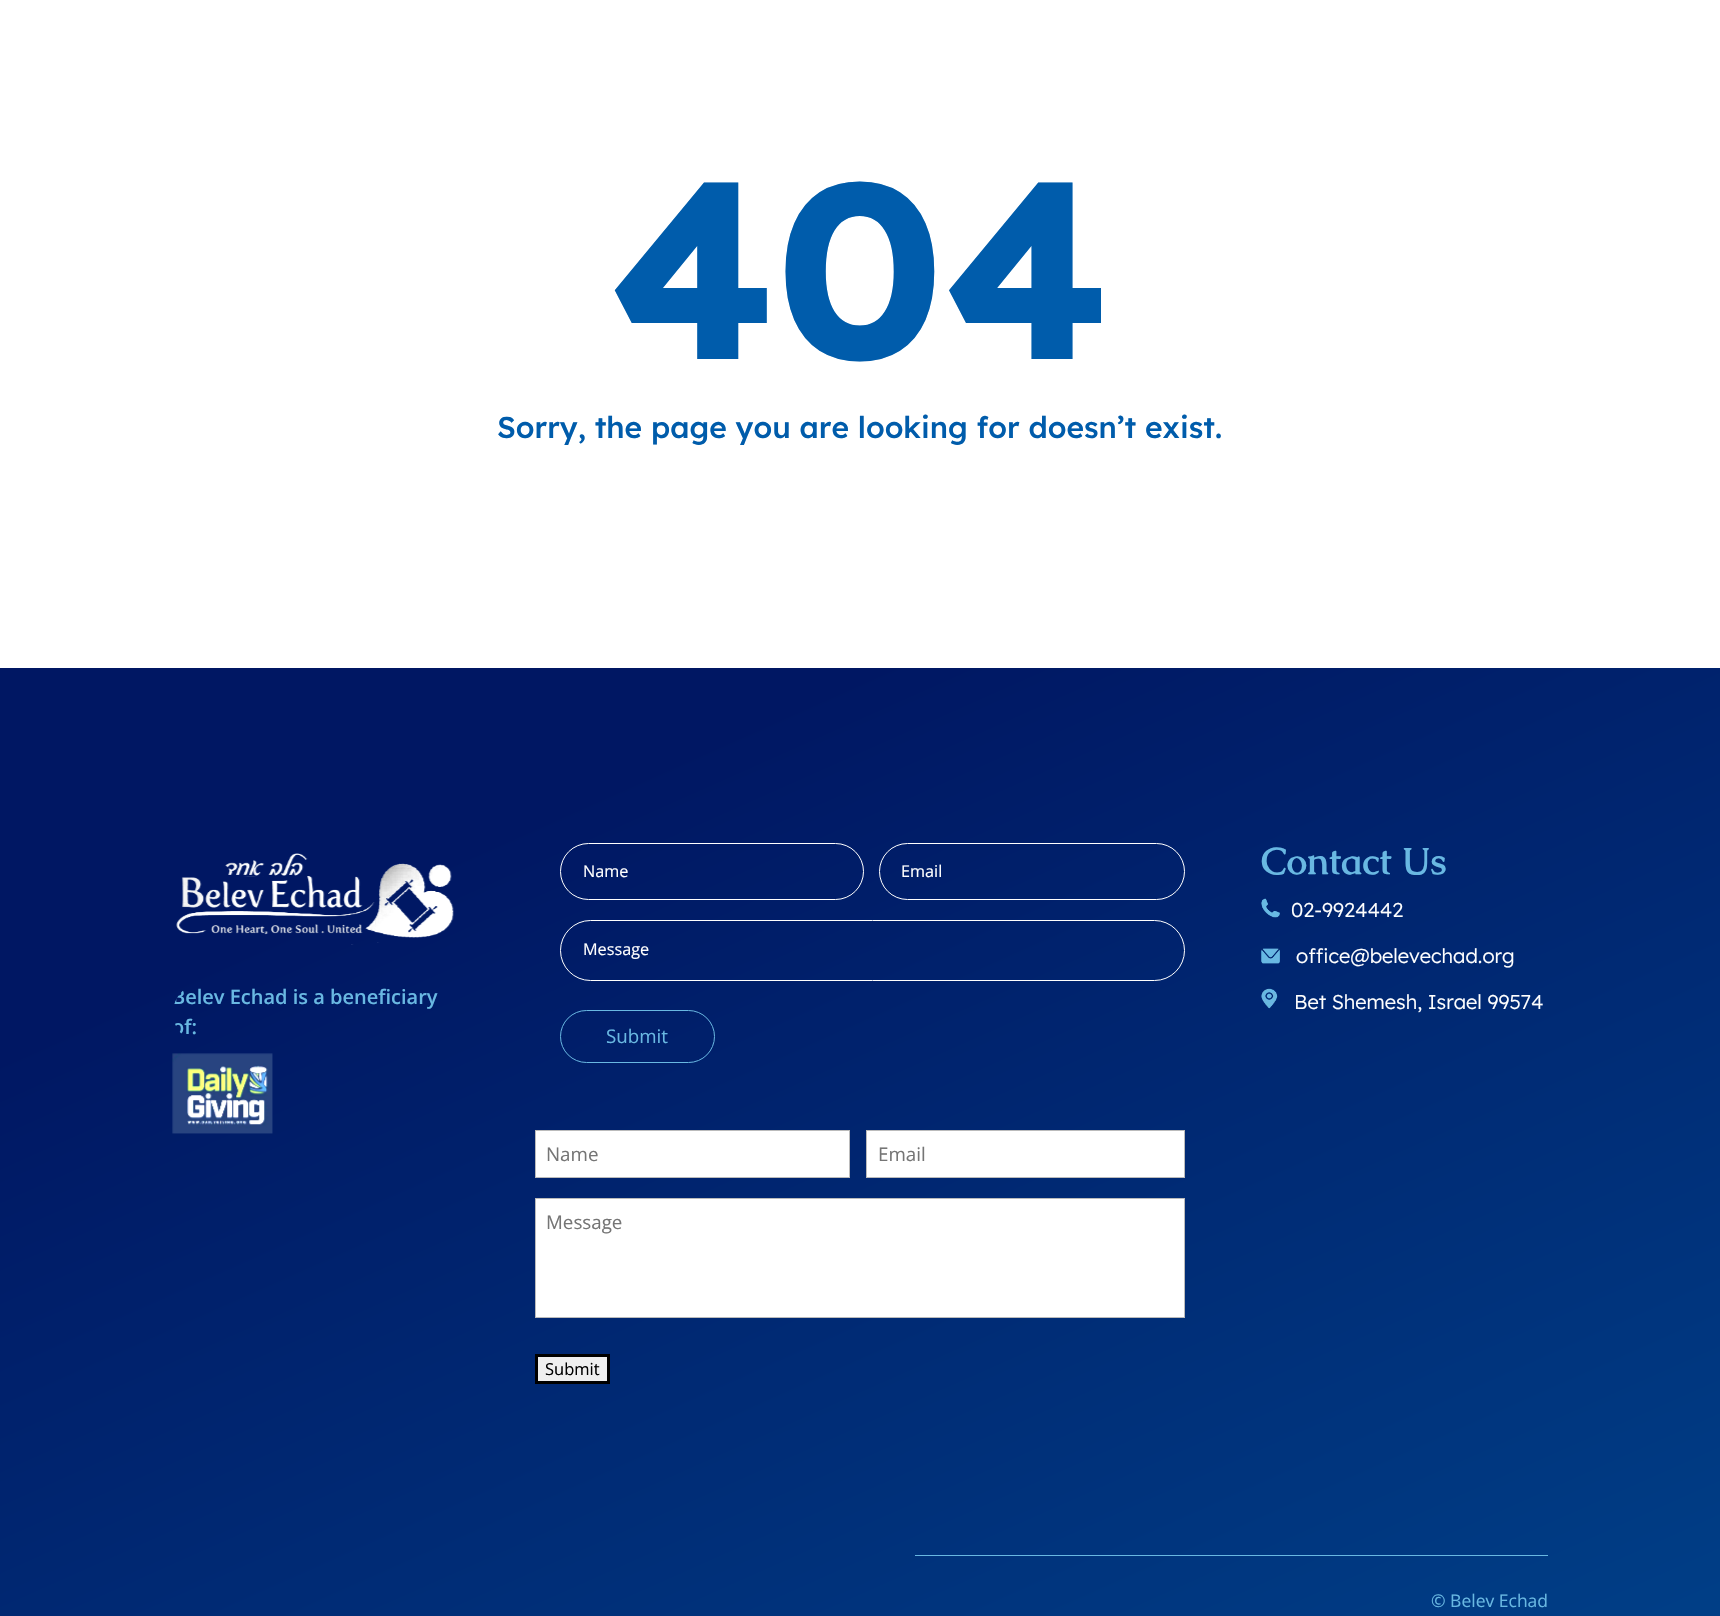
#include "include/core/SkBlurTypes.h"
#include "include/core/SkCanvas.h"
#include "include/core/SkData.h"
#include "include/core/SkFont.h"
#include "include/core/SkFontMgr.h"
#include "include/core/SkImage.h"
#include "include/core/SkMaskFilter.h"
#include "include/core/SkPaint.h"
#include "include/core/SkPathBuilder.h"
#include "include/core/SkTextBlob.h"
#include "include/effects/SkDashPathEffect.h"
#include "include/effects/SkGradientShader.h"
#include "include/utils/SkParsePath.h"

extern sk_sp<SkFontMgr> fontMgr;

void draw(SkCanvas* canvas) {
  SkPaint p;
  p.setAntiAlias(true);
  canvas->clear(SK_ColorWHITE);
  {
    const SkColor colors[] = {SkColorSetRGB(0, 63, 135), SkColorSetRGB(0, 23, 99)};
    const float stops[] = {0.01f, 0.78f};
    const SkPoint ends[] = {{1185, 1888}, {535, 429}};
    p.setShader(SkGradientShader::MakeLinear(ends, colors, stops, 2, SkTileMode::kClamp));
    p.setAlpha(255);
  }
  canvas->drawRect(SkRect::MakeLTRB(0, 668, 1720, 1616), p);
  canvas->drawImageRect(SkImages::DeferredFromEncodedData(SkData::MakeFromFileName("images/1.png")), SkRect::MakeLTRB(176, 853, 454, 945), SkSamplingOptions());
  canvas->drawImageRect(SkImages::DeferredFromEncodedData(SkData::MakeFromFileName("images/2.png")), SkRect::MakeLTRB(172, 1053, 273, 1134), SkSamplingOptions());
  p.setStyle(SkPaint::kStroke_Style);
  p.setStrokeWidth(1);
  p.setShader(nullptr);
  p.setColor(SK_ColorWHITE);
  canvas->drawRoundRect(SkRect::MakeLTRB(560.5f, 843.5f, 863.5f, 899.5f), 28, 28, p);
  canvas->drawRoundRect(SkRect::MakeLTRB(879.5f, 843.5f, 1184.5f, 899.5f), 28, 28, p);
  canvas->drawRoundRect(SkRect::MakeLTRB(560.5f, 920.5f, 1184.5f, 980.5f), 30, 30, p);
  p.setColor(SkColorSetRGB(105, 184, 226));
  canvas->drawRoundRect(SkRect::MakeLTRB(560.5f, 1010.5f, 714.5f, 1062.5f), 26, 26, p);
  p.setStyle(SkPaint::kFill_Style);
  p.setColor(SK_ColorWHITE);
  canvas->drawRect(SkRect::MakeLTRB(535.5f, 1130.5f, 849.5f, 1177.5f), p);
  p.setStyle(SkPaint::kStroke_Style);
  p.setColor(SkColorSetRGB(187, 187, 187));
  canvas->drawRect(SkRect::MakeLTRB(535.5f, 1130.5f, 849.5f, 1177.5f), p);
  p.setStyle(SkPaint::kFill_Style);
  p.setColor(SK_ColorWHITE);
  canvas->drawRect(SkRect::MakeLTRB(866.5f, 1130.5f, 1184.5f, 1177.5f), p);
  p.setStyle(SkPaint::kStroke_Style);
  p.setColor(SkColorSetRGB(187, 187, 187));
  canvas->drawRect(SkRect::MakeLTRB(866.5f, 1130.5f, 1184.5f, 1177.5f), p);
  p.setStyle(SkPaint::kFill_Style);
  p.setColor(SK_ColorWHITE);
  canvas->drawRect(SkRect::MakeLTRB(535.5f, 1198.5f, 1184.5f, 1317.5f), p);
  p.setStyle(SkPaint::kStroke_Style);
  p.setColor(SkColorSetRGB(187, 187, 187));
  canvas->drawRect(SkRect::MakeLTRB(535.5f, 1198.5f, 1184.5f, 1317.5f), p);
  p.setStyle(SkPaint::kFill_Style);
  p.setColor(SkColorSetRGB(239, 239, 239));
  canvas->drawRect(SkRect::MakeLTRB(536.5f, 1355.5f, 608.5f, 1382.5f), p);
  p.setStyle(SkPaint::kStroke_Style);
  p.setStrokeWidth(3);
  p.setColor(SK_ColorBLACK);
  canvas->drawRect(SkRect::MakeLTRB(536.5f, 1355.5f, 608.5f, 1382.5f), p);
  canvas->drawImageRect(SkImages::DeferredFromEncodedData(SkData::MakeFromFileName("images/3.png")), SkRect::MakeLTRB(1261, 898, 1280, 918), SkSamplingOptions());
  canvas->drawImageRect(SkImages::DeferredFromEncodedData(SkData::MakeFromFileName("images/4.png")), SkRect::MakeLTRB(1261, 948, 1280, 964), SkSamplingOptions());
  canvas->drawImageRect(SkImages::DeferredFromEncodedData(SkData::MakeFromFileName("images/5.png")), SkRect::MakeLTRB(1261, 988, 1278, 1009), SkSamplingOptions());
  p.setStyle(SkPaint::kFill_Style);
  p.setColor(SkColorSetRGB(105, 184, 226));
  canvas->drawRect(SkRect::MakeLTRB(915, 1555, 1548, 1556), p);
  SkFont font1(fontMgr->matchFamilyStyle("Lexend", SkFontStyle::Bold()), 250);
  font1.setSubpixel(true);
  p.setColor(SkColorSetRGB(0, 92, 171));
  canvas->drawString("404", 610, 359, font1, p);
  SkFont font2(fontMgr->matchFamilyStyle("Lexend", SkFontStyle(500, SkFontStyle::kNormal_Width, SkFontStyle::kUpright_Slant)), 30);
  font2.setSubpixel(true);
  canvas->drawString("Sorry, the page you are looking for doesn’t exist.", 497, 438, font2, p);
  canvas->save();
  canvas->clipPath(SkPathBuilder().moveTo(203, 983).lineTo(429, 983).cubicTo(445.5f, 983, 459, 996.5f, 459, 1013).cubicTo(459, 1029.5f, 445.5f, 1043, 429, 1043).lineTo(203, 1043).cubicTo(186.5f, 1043, 173, 1029.5f, 173, 1013).cubicTo(173, 996.5f, 186.5f, 983, 203, 983).close().detach(), true);
  SkFont font3(fontMgr->matchFamilyStyle("Open Sans", SkFontStyle(600, SkFontStyle::kNormal_Width, SkFontStyle::kUpright_Slant)), 20);
  font3.setSubpixel(true);
  p.setColor(SkColorSetRGB(105, 184, 226));
  canvas->drawString("Belev Echad is a beneficiary", 172, 1004, font3, p);
  canvas->drawString("of:", 172, 1034, font3, p);
  canvas->restore();
  SkFont font4(fontMgr->matchFamilyStyle("Open Sans", SkFontStyle::Normal()), 16.25f);
  font4.setSubpixel(true);
  p.setColor(SK_ColorWHITE);
  canvas->drawString("Name", 583, 877, font4, p);
  canvas->drawString("Email", 901, 877, font4, p);
  canvas->drawString("Message", 583, 955, font4, p);
  SkFont font5(fontMgr->matchFamilyStyle("Open Sans", SkFontStyle::Normal()), 18.75f);
  font5.setSubpixel(true);
  p.setColor(SkColorSetRGB(105, 184, 226));
  canvas->drawString("Submit", 606, 1043, font5, p);
  p.setColor(SkColorSetRGB(117, 117, 117));
  canvas->drawString("Name", 546, 1161, font5, p);
  canvas->drawString("Email", 878, 1161, font5, p);
  canvas->drawString("Message", 546, 1229, font5, p);
  SkFont font6(fontMgr->matchFamilyStyle("Open Sans", SkFontStyle::Normal()), 16.5f);
  font6.setSubpixel(true);
  p.setColor(SK_ColorBLACK);
  canvas->drawString("Submit", 545, 1375, font6, p);
  SkFont font7(fontMgr->matchFamilyStyle("Caudex", SkFontStyle::Bold()), 37.5f);
  font7.setSubpixel(true);
  p.setColor(SkColorSetRGB(105, 184, 226));
  canvas->drawString("Contact Us", 1261, 874, font7, p);
  SkFont font8(fontMgr->matchFamilyStyle("Lexend", SkFontStyle(300, SkFontStyle::kNormal_Width, SkFontStyle::kUpright_Slant)), 20);
  font8.setSubpixel(true);
  p.setColor(SK_ColorWHITE);
  canvas->drawString("02-9924442", 1291, 917, font8, p);
  canvas->drawString("office@belevechad.org", 1296, 963, font8, p);
  canvas->drawString("Bet Shemesh, Israel 99574", 1294, 1009, font8, p);
  SkFont font9(fontMgr->matchFamilyStyle("Open Sans", SkFontStyle::Normal()), 17.5f);
  font9.setSubpixel(true);
  p.setColor(SkColorSetRGB(105, 184, 226));
  canvas->drawString("© Belev Echad", 1431, 1607, font9, p);
}
